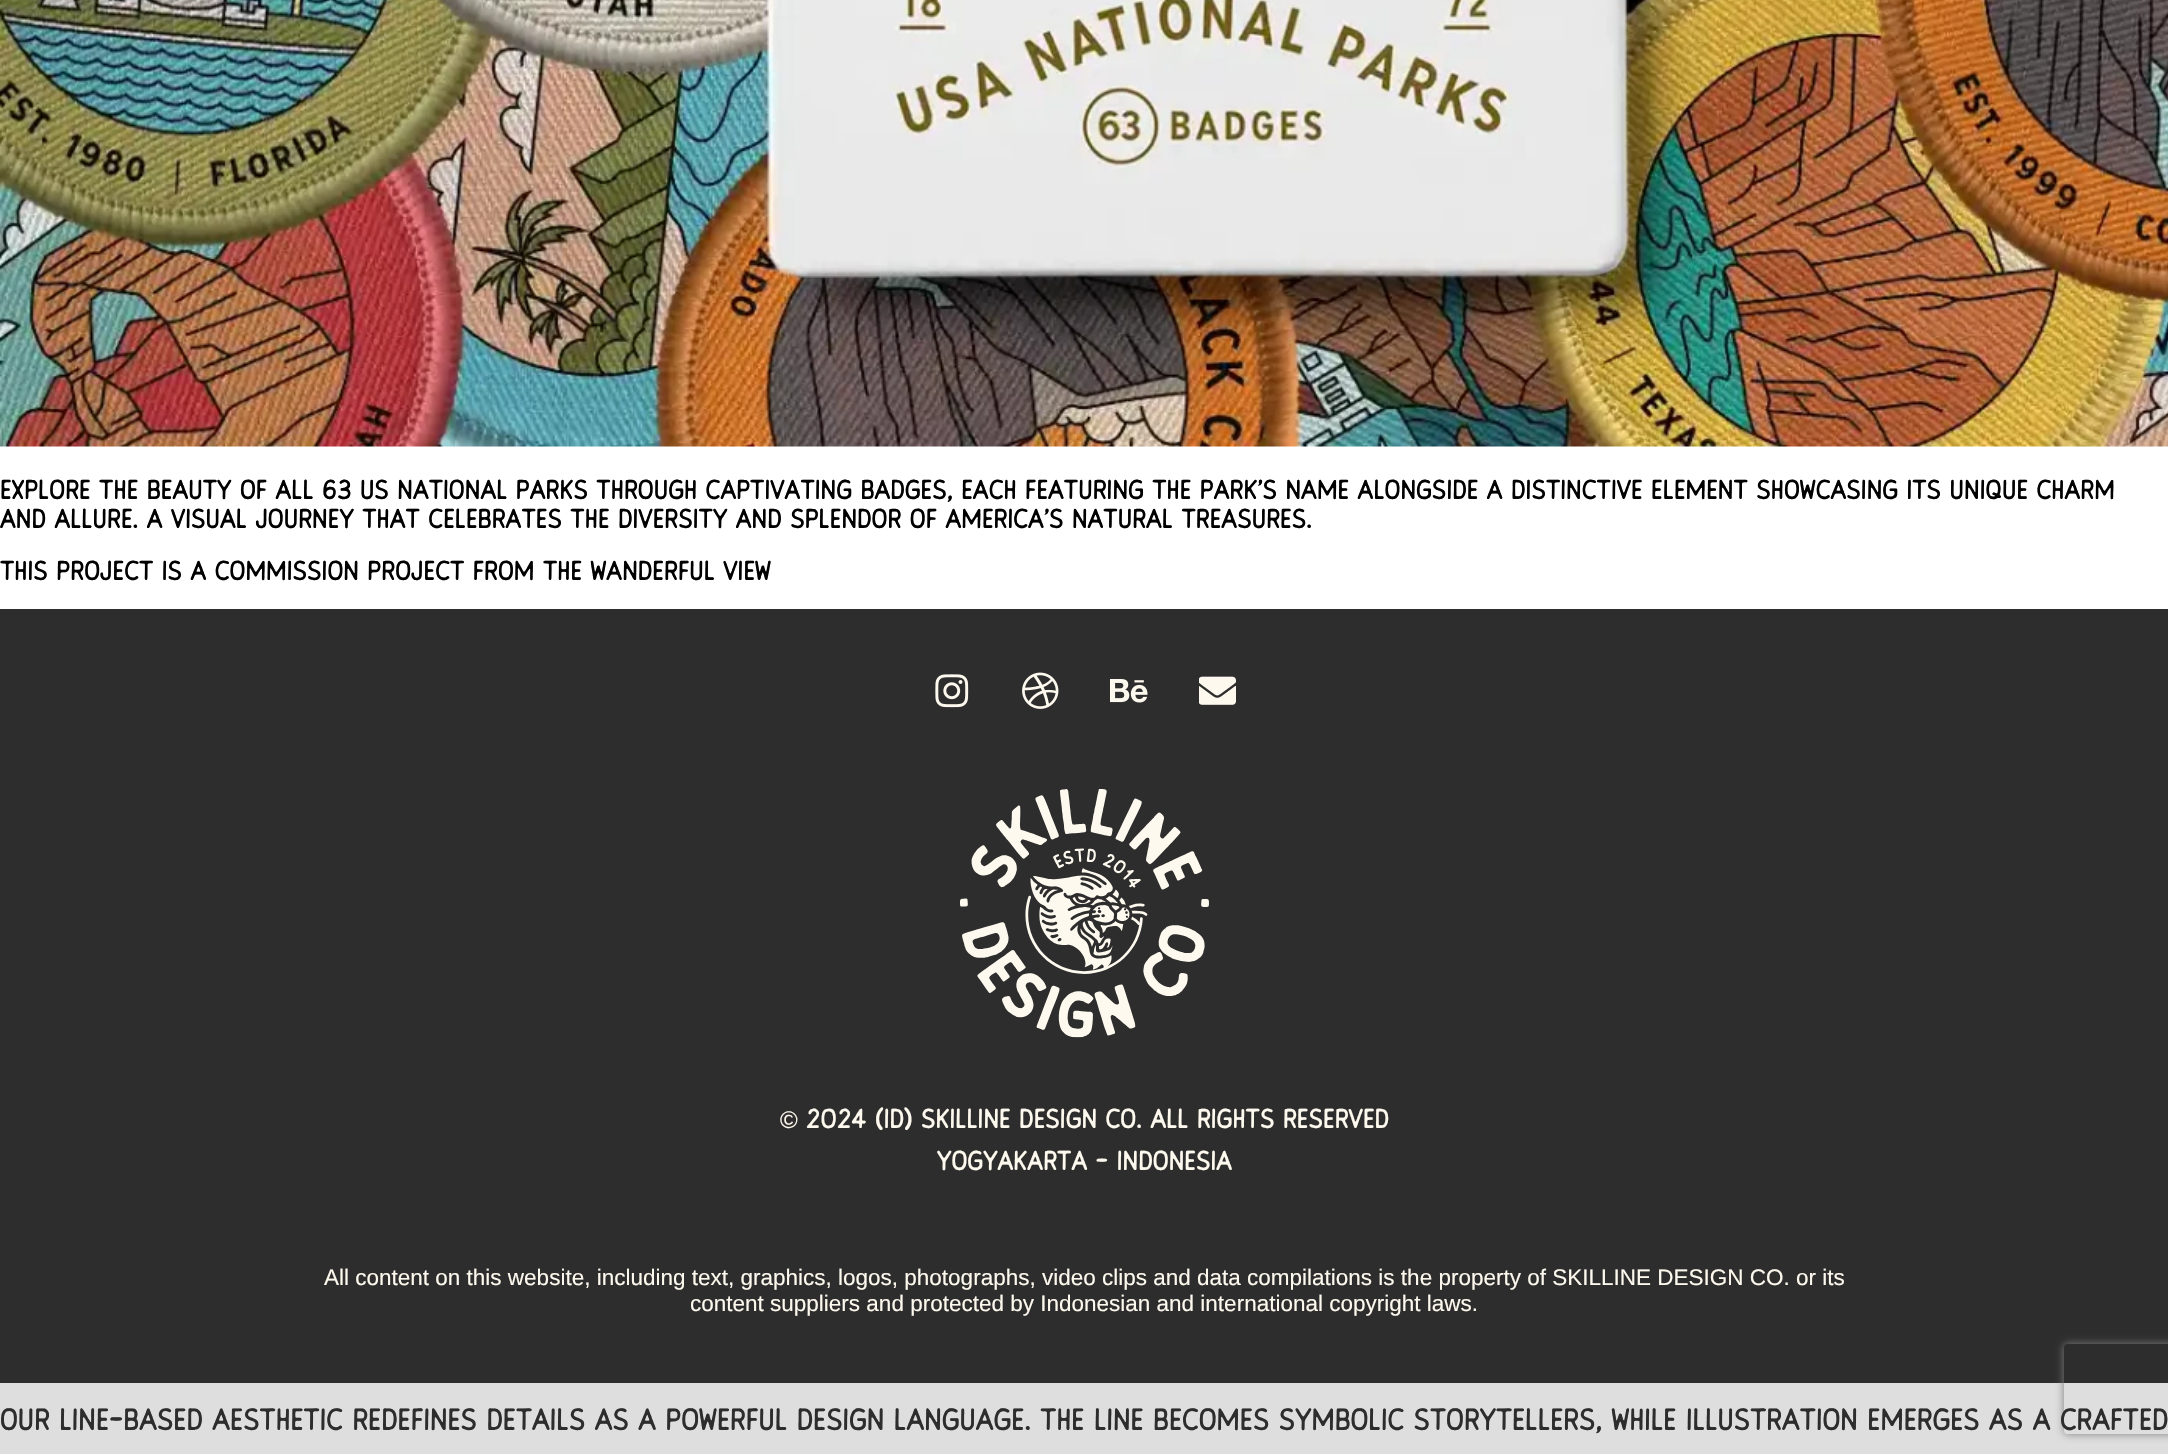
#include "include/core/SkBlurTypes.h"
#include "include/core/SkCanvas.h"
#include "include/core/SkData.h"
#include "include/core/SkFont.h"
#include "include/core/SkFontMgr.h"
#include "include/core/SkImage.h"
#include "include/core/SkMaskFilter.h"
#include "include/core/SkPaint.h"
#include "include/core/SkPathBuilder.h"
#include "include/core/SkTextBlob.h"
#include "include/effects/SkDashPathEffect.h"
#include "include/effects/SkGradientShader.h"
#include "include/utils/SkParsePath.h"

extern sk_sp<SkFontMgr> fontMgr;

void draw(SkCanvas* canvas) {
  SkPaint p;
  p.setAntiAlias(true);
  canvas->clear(SK_ColorWHITE);
  canvas->drawImageRect(SkImages::DeferredFromEncodedData(SkData::MakeFromFileName("images/1.png")), SkRect::MakeLTRB(0, 0, 2168, 447), SkSamplingOptions());
  p.setColor(SkColorSetRGB(45, 45, 45));
  canvas->drawRect(SkRect::MakeLTRB(0, 609, 2168, 1383), p);
  canvas->drawImageRect(SkImages::DeferredFromEncodedData(SkData::MakeFromFileName("images/2.png")), SkRect::MakeLTRB(935, 674, 969, 708), SkSamplingOptions());
  canvas->drawImageRect(SkImages::DeferredFromEncodedData(SkData::MakeFromFileName("images/3.png")), SkRect::MakeLTRB(1022, 672, 1059, 709), SkSamplingOptions());
  canvas->drawImageRect(SkImages::DeferredFromEncodedData(SkData::MakeFromFileName("images/4.png")), SkRect::MakeLTRB(1110, 679, 1148, 703), SkSamplingOptions());
  canvas->drawImageRect(SkImages::DeferredFromEncodedData(SkData::MakeFromFileName("images/5.png")), SkRect::MakeLTRB(1199, 676, 1236, 705), SkSamplingOptions());
  canvas->drawImageRect(SkImages::DeferredFromEncodedData(SkData::MakeFromFileName("images/6.png")), SkRect::MakeLTRB(960, 789, 1209, 1038), SkSamplingOptions());
  p.setColor(SkColorSetRGB(222, 222, 222));
  canvas->drawRect(SkRect::MakeLTRB(0, 1383, 2168, 1454), p);
  canvas->save();
  canvas->clipPath(SkPathBuilder(SkPathFillType::kEvenOdd).moveTo(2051, 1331).lineTo(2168, 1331).lineTo(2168, 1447).lineTo(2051, 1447).close().moveTo(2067, 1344).lineTo(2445, 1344).cubicTo(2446.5f, 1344, 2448, 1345.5f, 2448, 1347).lineTo(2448, 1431).cubicTo(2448, 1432.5f, 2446.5f, 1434, 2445, 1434).lineTo(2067, 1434).cubicTo(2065.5f, 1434, 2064, 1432.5f, 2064, 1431).lineTo(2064, 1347).cubicTo(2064, 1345.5f, 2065.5f, 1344, 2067, 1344).close().detach(), true);
  p.setColor(SkColorSetRGB(128, 128, 128));
  p.setMaskFilter(SkMaskFilter::MakeBlur(kNormal_SkBlurStyle, 4));
  canvas->drawRoundRect(SkRect::MakeLTRB(2064, 1344, 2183, 1434), 3, 3, p);
  p.setMaskFilter(nullptr);
  canvas->restore();
  SkFont font1(fontMgr->matchFamilyStyle("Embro", SkFontStyle::Normal()), 24);
  font1.setSubpixel(true);
  p.setColor(SK_ColorBLACK);
  canvas->drawString("Explore the beauty of all 63 US National Parks through captivating badges, each featuring the park’s name alongside a distinctive element showcasing its unique charm", 0, 499, font1, p);
  canvas->drawString("and allure. A visual journey that celebrates the diversity and splendor of America’s natural treasures.", 0, 528, font1, p);
  canvas->drawString("This project is a commission project from The Wanderful View", 0, 580, font1, p);
  SkFont font2(fontMgr->matchFamilyStyle("Liberation Sans", SkFontStyle::Normal()), 24);
  font2.setSubpixel(true);
  p.setColor(SkColorSetRGB(254, 249, 238));
  canvas->drawString("©", 780, 1128, font2, p);
  canvas->drawString("2024 (ID) Skilline design co. All Rights Reserved", 806, 1128, font1, p);
  canvas->drawString("YOGYAKARTA - INDONESIA", 937, 1170, font1, p);
  SkFont font3(fontMgr->matchFamilyStyle("Arimo", SkFontStyle::Normal()), 22.5f);
  font3.setSubpixel(true);
  canvas->drawString("All content on this website, including text, graphics, logos, photographs, video clips and data compilations is the property of SKILLINE DESIGN CO. or its", 324, 1285, font3, p);
  canvas->drawString("content suppliers and protected by Indonesian and international copyright laws.", 690, 1311, font3, p);
  SkFont font4(fontMgr->matchFamilyStyle("Embro", SkFontStyle::Normal()), 27);
  font4.setSubpixel(true);
  p.setColor(SkColorSetRGB(45, 45, 45));
  canvas->drawString("Our line-based aesthetic redefines details as a powerful design language. The line becomes symbolic storytellers, while illustration emerges as a crafted", 0, 1430, font4, p);
}
